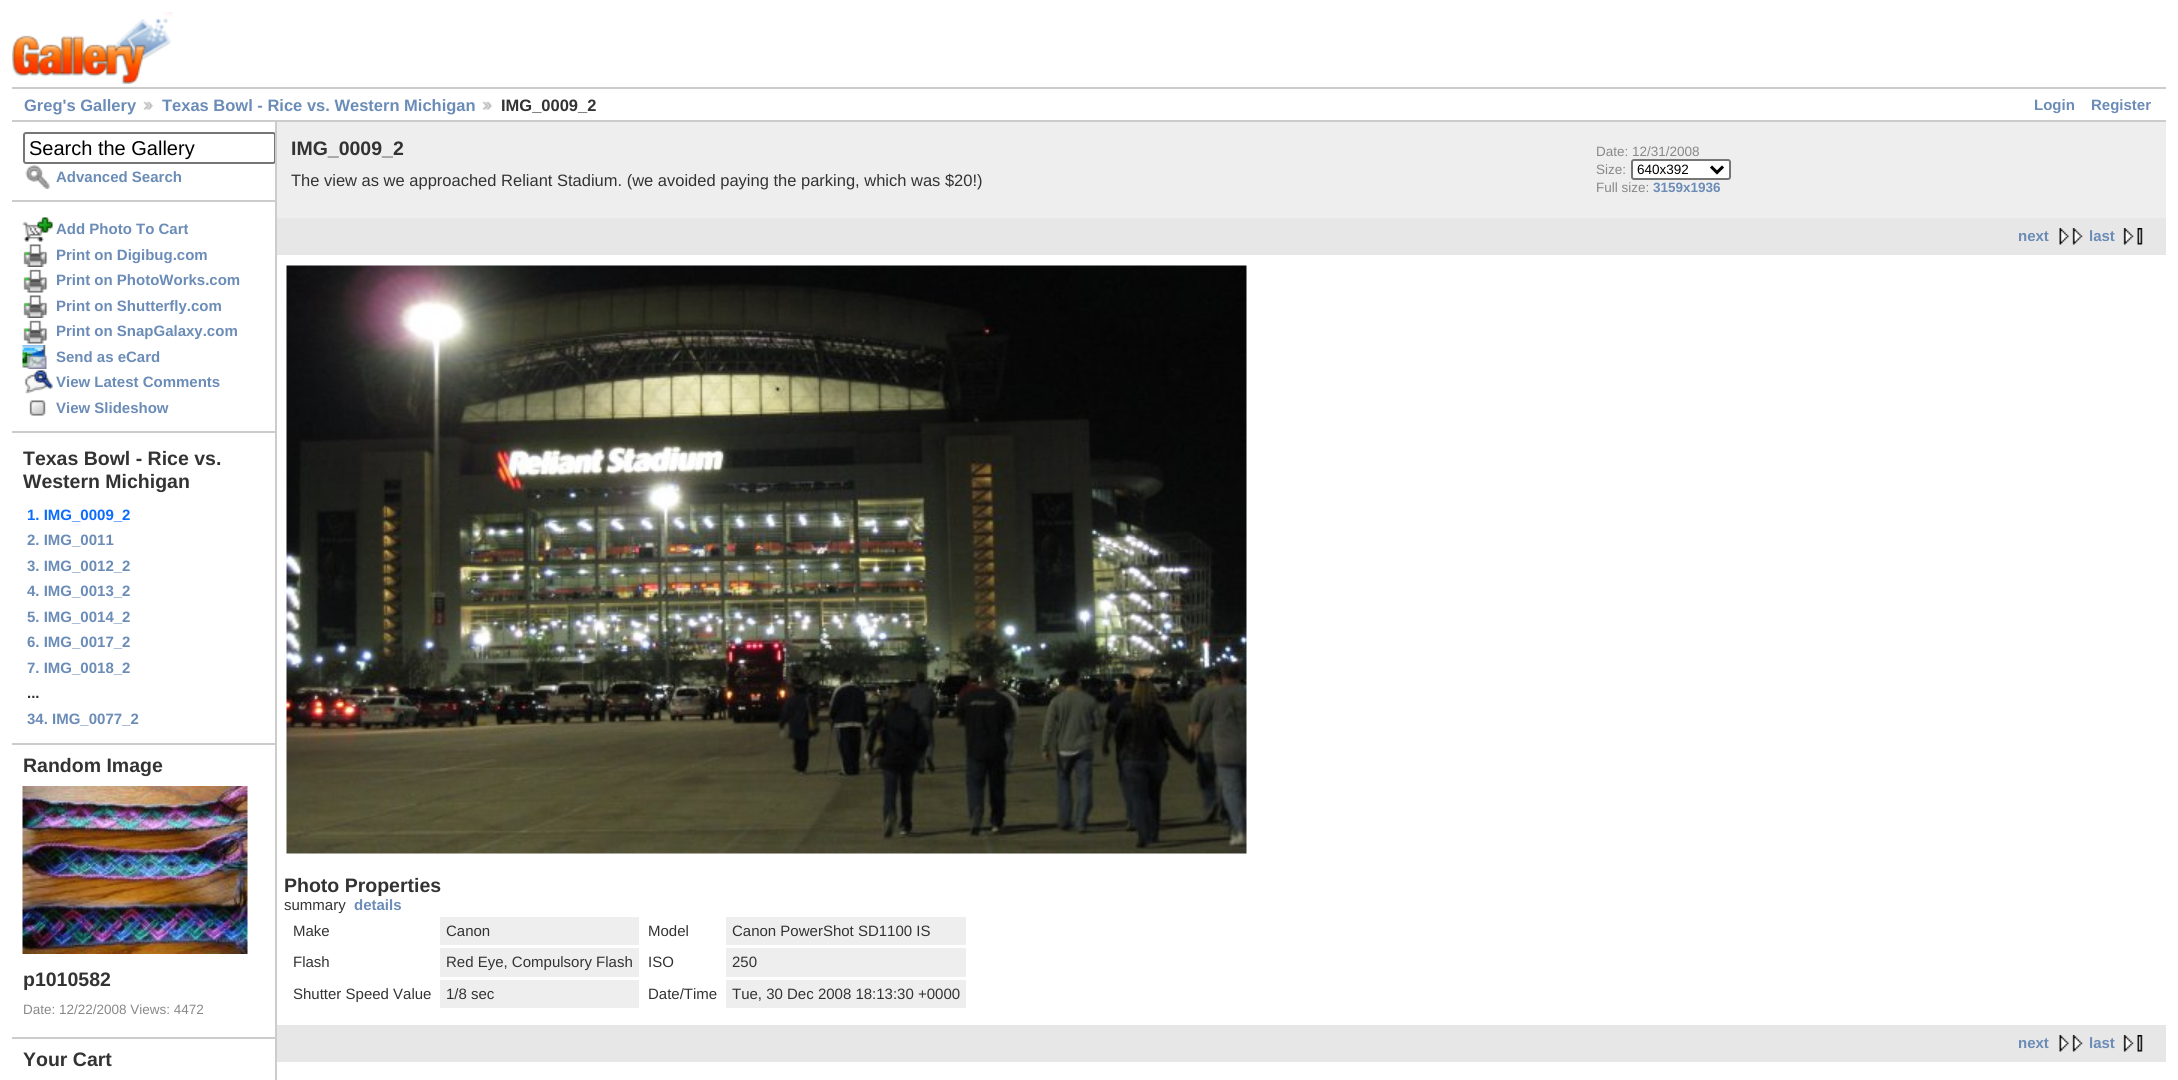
import math
import cairo

surface = cairo.ImageSurface(cairo.FORMAT_RGB24, 2178, 1080)
c = cairo.Context(surface)
options = cairo.FontOptions()
options.set_hint_metrics(cairo.HINT_METRICS_OFF)
options.set_hint_style(cairo.HINT_STYLE_NONE)
c.set_font_options(options)
c.set_miter_limit(4)
def C(code):
 c.set_source_rgb(*(v / 255 for v in bytes.fromhex(code[-6:])))
def F(family, size, italic, bold):
 c.select_font_face(family, cairo.FONT_SLANT_ITALIC if italic else cairo.FONT_SLANT_NORMAL, cairo.FONT_WEIGHT_BOLD if bold else cairo.FONT_WEIGHT_NORMAL)
 c.set_font_size(size)
def T(x, y, s):
 c.move_to(x, y)
 c.show_text(s)
def R(x, y, w, h):
 c.rectangle(x, y, w, h)
 c.fill()
def Q(x, y, w, h, r):
 c.new_sub_path()
 for i, (u, v) in enumerate([(x + w - r, y + h - r), (x + r, y + h - r), (x + r, y + r), (x + w - r, y + r)]):
  c.arc(u, v, r, i * math.pi / 2, (i + 1) * math.pi / 2)
 c.close_path()
def I(path, x, y, w, h):
 c.save()
 c.set_source_surface(cairo.ImageSurface.create_from_png(path), x, y)
 c.rectangle(x, y, w, h)
 c.fill()
 c.restore()
C('ffffff')
c.paint()
I('1.png',12,12,161,72)
C('cccccc')
R(12,87,2154,2)
R(12,120,2154,2)
F('Liberation Sans',16.5,0,1)
C('6b8cb7')
T(24,111,'Greg\'s Gallery')
I('2.png',143,101,11,9)
T(162,111,'Texas Bowl - Rice vs. Western Michigan')
I('3.png',482,101,11,9)
C('333333')
T(501,111,'IMG_0009_2')
F('Liberation Sans',15,0,1)
C('6b8cb7')
T(2034,110,'Login')
T(2091,110,'Register')
C('cccccc')
R(275,122,2,958)
R(12,200,263,2)
c.save()
c.rectangle(12,122,263,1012)
c.clip()
Q(24,133,251,30,2)
C('767676')
c.stroke()
c.restore()
F('Liberation Sans',20,0,0)
C('000000')
T(29,155,'Search the Gallery')
I('4.png',25,165,25,24)
F('Liberation Sans',15,0,1)
C('6b8cb7')
T(56,182,'Advanced Search')
C('cccccc')
R(12,431,263,2)
I('5.png',22,217,31,25)
C('6b8cb7')
T(56,234,'Add Photo To Cart')
I('6.png',23,244,25,23)
T(56,260,'Print on Digibug.com')
I('7.png',23,269,25,24)
T(56,285,'Print on PhotoWorks.com')
I('6.png',23,295,25,23)
T(56,311,'Print on Shutterfly.com')
I('7.png',23,320,25,24)
T(56,336,'Print on SnapGalaxy.com')
I('8.png',22,345,25,24)
T(56,362,'Send as eCard')
I('9.png',24,370,29,24)
T(56,387,'View Latest Comments')
I('10.png',29,400,17,16)
T(56,413,'View Slideshow')
C('cccccc')
R(12,743,263,2)
F('Liberation Sans',19.5,0,1)
C('333333')
T(23,465,'Texas Bowl - Rice vs.')
T(23,488,'Western Michigan')
F('Liberation Sans',15,0,1)
C('0b6cff')
T(27,520,'1. IMG_0009_2')
C('6b8cb7')
T(27,545,'2. IMG_0011')
T(27,571,'3. IMG_0012_2')
T(27,596,'4. IMG_0013_2')
T(27,622,'5. IMG_0014_2')
T(27,647,'6. IMG_0017_2')
T(27,673,'7. IMG_0018_2')
C('333333')
T(27,698,'...')
C('6b8cb7')
T(27,724,'34. IMG_0077_2')
C('cccccc')
R(12,1037,263,2)
F('Liberation Sans',19.5,0,1)
C('333333')
T(23,772,'Random Image')
I('11.png',22,786,226,168)
T(23,986,'p1010582')
F('Liberation Sans',13.5,0,0)
C('888888')
T(23,1014,'Date: 12/22/2008 Views: 4472')
F('Liberation Sans',19.5,0,1)
C('333333')
T(23,1066,'Your Cart')
C('eeeeee')
R(277,122,1889,96)
C('333333')
T(291,155,'IMG_0009_2')
F('Liberation Sans',16.5,0,0)
T(291,186,'The view as we approached Reliant Stadium. (we avoided paying the parking, which was $20!)')
F('Liberation Sans',13.5,0,0)
C('888888')
T(1596,156,'Date: 12/31/2008')
T(1596,174,'Size:')
C('ffffff')
Q(1632,160,98,19,2)
c.fill_preserve()
C('767676')
c.stroke()
c.new_path()
c.move_to(1711,166.5)
c.line_to(1717,172.5)
c.line_to(1723,166.5)
C('000000')
c.set_line_width(3)
c.stroke()
T(1637,174,'640x392')
C('888888')
T(1596,192,'Full size:')
F('Liberation Sans',13.5,0,1)
C('6b8cb7')
T(1653,192,'3159x1936')
C('e7e7e7')
R(277,218,1889,37)
F('Liberation Sans',15,0,1)
C('6b8cb7')
T(2018,241,'next')
I('12.png',2059,228,24,17)
T(2089,241,'last')
I('13.png',2123,228,20,17)
I('14.png',286,265,961,589)
F('Liberation Sans',19.5,0,1)
C('333333')
T(284,892,'Photo Properties')
F('Liberation Sans',15,0,0)
T(284,910,'summary')
F('Liberation Sans',15,0,1)
C('6b8cb7')
T(354,910,'details')
F('Liberation Sans',15,0,0)
C('333333')
T(293,936,'Make')
C('eeeeee')
R(440,917,199,28)
C('333333')
T(446,936,'Canon')
T(648,936,'Model')
C('eeeeee')
R(726,917,240,28)
C('333333')
T(732,936,'Canon PowerShot SD1100 IS')
T(293,967,'Flash')
C('eeeeee')
R(440,948,199,29)
C('333333')
T(446,967,'Red Eye, Compulsory Flash')
T(648,967,'ISO')
C('eeeeee')
R(726,948,240,29)
C('333333')
T(732,967,'250')
T(293,999,'Shutter Speed Value')
C('eeeeee')
R(440,980,199,28)
C('333333')
T(446,999,'1/8 sec')
T(648,999,'Date/Time')
C('eeeeee')
R(726,980,240,28)
C('333333')
T(732,999,'Tue, 30 Dec 2008 18:13:30 +0000')
C('e7e7e7')
R(277,1025,1889,37)
F('Liberation Sans',15,0,1)
C('6b8cb7')
T(2018,1048,'next')
I('12.png',2059,1035,24,17)
T(2089,1048,'last')
I('13.png',2123,1035,20,17)
surface.write_to_png('o.png')
